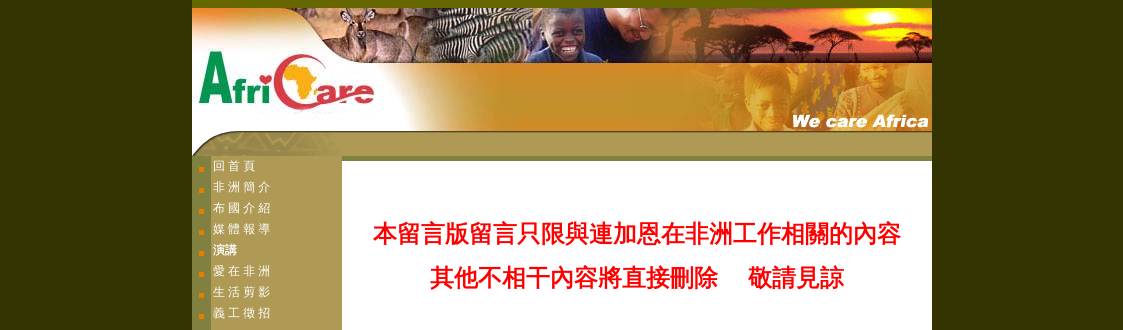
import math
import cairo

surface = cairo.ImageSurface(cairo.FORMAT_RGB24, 1123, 330)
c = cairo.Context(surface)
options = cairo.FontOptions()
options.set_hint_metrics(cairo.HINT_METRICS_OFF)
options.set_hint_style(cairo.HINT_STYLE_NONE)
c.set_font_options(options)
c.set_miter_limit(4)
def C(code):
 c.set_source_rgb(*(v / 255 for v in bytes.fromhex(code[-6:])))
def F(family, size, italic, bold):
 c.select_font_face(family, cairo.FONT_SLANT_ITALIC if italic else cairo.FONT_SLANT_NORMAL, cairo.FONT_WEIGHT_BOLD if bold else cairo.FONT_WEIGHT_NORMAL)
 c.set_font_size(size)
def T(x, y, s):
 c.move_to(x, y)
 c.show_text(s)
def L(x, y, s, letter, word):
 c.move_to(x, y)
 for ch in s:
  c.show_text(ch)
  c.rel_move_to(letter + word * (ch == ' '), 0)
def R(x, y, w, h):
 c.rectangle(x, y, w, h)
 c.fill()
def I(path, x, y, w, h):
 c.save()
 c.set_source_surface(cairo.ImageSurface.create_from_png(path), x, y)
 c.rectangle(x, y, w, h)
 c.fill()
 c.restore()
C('343402')
c.paint()
C('666701')
R(192,0,740,8)
I('1.png',192,8,150,123)
I('2.png',342,8,290,123)
I('3.png',632,8,300,123)
I('4.png',192,131,150,25)
C('ae9a55')
R(211,156,131,174)
C('808040')
R(192,156,19,174)
C('e77d00')
R(199,167,5,5)
F('WenQuanYi Zen Hei Medium',12,0,0)
C('ffffff')
L(213,170,'回 首 頁',0,-.5)
C('e77d00')
R(199,188,5,5)
C('ffffff')
L(213,191,'非 洲 簡 介',0,-.5)
C('e77d00')
R(199,209,5,5)
C('ffffff')
L(213,212,'布 國 介 紹',0,-.5)
C('e77d00')
R(199,230,5,5)
C('ffffff')
L(213,233,'媒 體 報 導',0,-.5)
C('e77d00')
R(199,251,5,5)
F('WenQuanYi Zen Hei',12,0,1)
C('ffffff')
T(213,254,'演講')
C('e77d00')
R(199,272,5,5)
F('WenQuanYi Zen Hei Medium',12,0,0)
C('ffffff')
L(213,275,'愛 在 非 洲',0,-.5)
C('e77d00')
R(199,293,5,5)
C('ffffff')
L(213,296,'生 活 剪 影',0,-.5)
C('e77d00')
R(199,314,5,5)
C('ffffff')
L(213,317,'義 工 徵 招',0,-.5)
R(342,161,590,169)
I('5.png',342,131,590,25)
C('808040')
R(342,156,590,5)
F('WenQuanYi Zen Hei',24,0,1)
C('ff0000')
T(373,242,'本留言版留言只限與連加恩在非洲工作相關的內容')
T(430,286,'其他不相干內容將直接刪除')
T(748,286,'敬請見諒')
surface.write_to_png('o.png')
